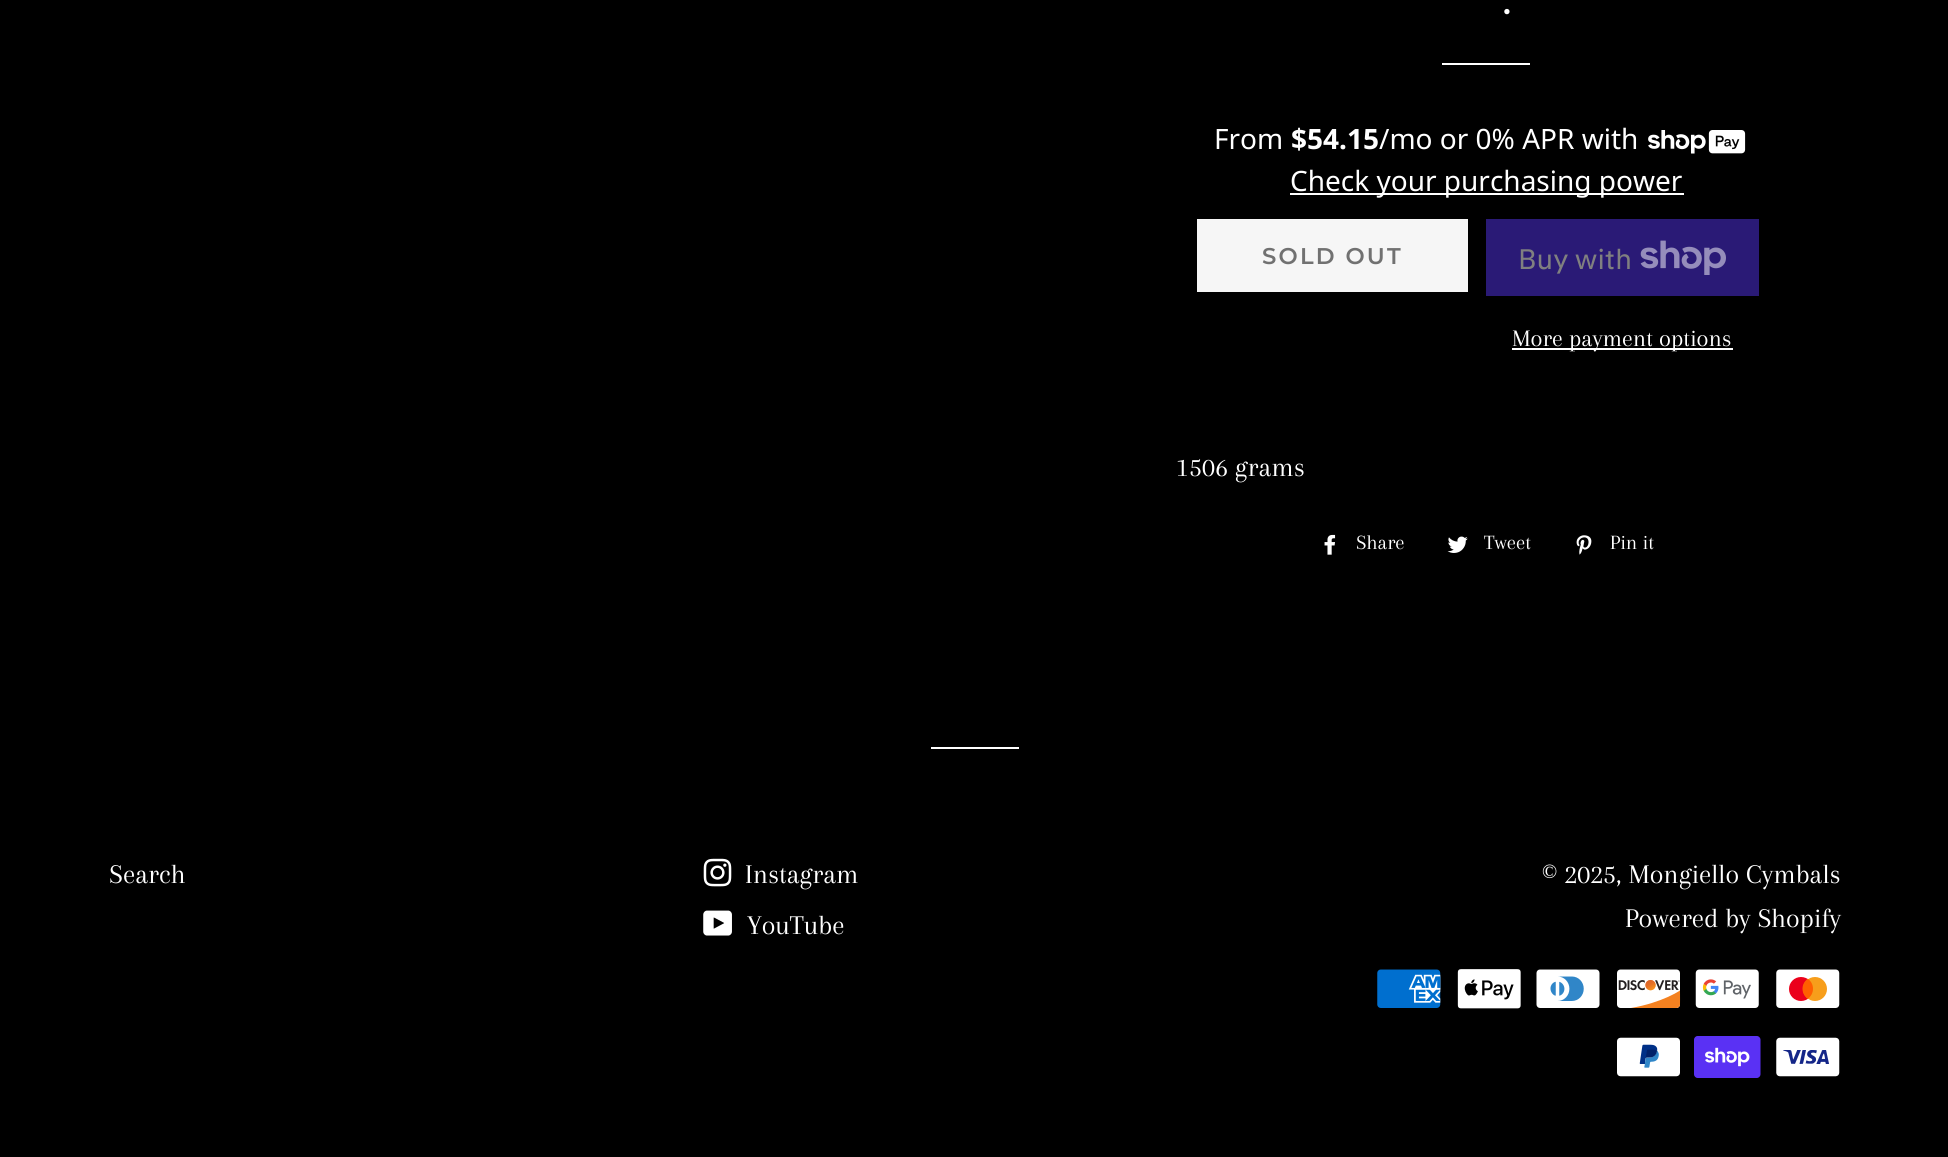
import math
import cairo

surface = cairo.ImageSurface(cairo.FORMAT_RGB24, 1948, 1157)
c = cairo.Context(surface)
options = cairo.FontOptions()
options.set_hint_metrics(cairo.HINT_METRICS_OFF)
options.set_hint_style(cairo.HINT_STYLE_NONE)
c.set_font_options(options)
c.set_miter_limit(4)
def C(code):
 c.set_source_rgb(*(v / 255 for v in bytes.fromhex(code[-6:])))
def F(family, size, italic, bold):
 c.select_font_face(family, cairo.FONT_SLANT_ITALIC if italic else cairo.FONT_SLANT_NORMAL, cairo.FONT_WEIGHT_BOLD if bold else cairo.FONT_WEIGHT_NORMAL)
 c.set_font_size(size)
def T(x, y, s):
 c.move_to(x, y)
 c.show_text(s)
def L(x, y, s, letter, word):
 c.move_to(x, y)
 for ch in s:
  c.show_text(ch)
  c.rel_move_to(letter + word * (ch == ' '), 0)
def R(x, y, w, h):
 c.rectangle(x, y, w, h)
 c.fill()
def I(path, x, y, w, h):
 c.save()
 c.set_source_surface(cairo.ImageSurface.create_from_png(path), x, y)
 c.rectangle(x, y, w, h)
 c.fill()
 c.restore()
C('000000')
c.paint()
F('Montserrat SemiBold',32,0,0)
C('ffffff')
L(1503,14,'.',3,0)
R(1442,63,88,2)
F('Noto Sans',28,0,0)
T(1214,149,'From')
F('Noto Sans',28,0,1)
T(1291,149,'$54.15')
F('Noto Sans',28,0,0)
T(1379,149,'/mo or 0% APR with')
I('1.png',1648,130,98,24)
R(1290,193,394,2)
T(1290,191,'Check your purchasing power')
C('f6f6f6')
R(1197,219,271,73)
F('Montserrat SemiBold',22.75,0,0)
C('717171')
L(1262,264,'SOLD OUT',2.25,0)
C('2a1a76')
R(1486,219,273,77)
F('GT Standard',28,0,0)
C('808080')
T(1518,269,'Buy with')
I('2.png',1640,240,86,35)
C('ffffff')
R(1512,348,221,2)
F('Arapey',24.5,0,0)
T(1512,346,'More payment options')
F('Arapey',28,0,0)
T(1176,476,'1506 grams')
I('3.png',1324,534,12,21)
F('Arapey',21,0,0)
T(1356,549,'Share')
I('4.png',1447,536,21,17)
T(1484,549,'Tweet')
I('5.png',1576,535,16,20)
T(1610,549,'Pin it')
R(931,747,88,2)
F('Arapey',28,0,0)
T(109,883,'Search')
I('6.png',703,858,29,29)
T(745,883,'Instagram')
I('7.png',703,910,29,26)
T(747,934,'YouTube')
T(1542,883,'© 2025, Mongiello Cymbals')
T(1625,927,'Powered by Shopify')
I('8.png',1377,969,64,39)
I('9.png',1457,969,64,40)
I('10.png',1536,969,64,39)
I('11.png',1617,969,64,39)
I('12.png',1695,969,64,39)
I('13.png',1776,969,64,39)
I('14.png',1617,1037,63,40)
I('15.png',1694,1036,67,42)
I('16.png',1776,1037,64,40)
surface.write_to_png('o.png')
